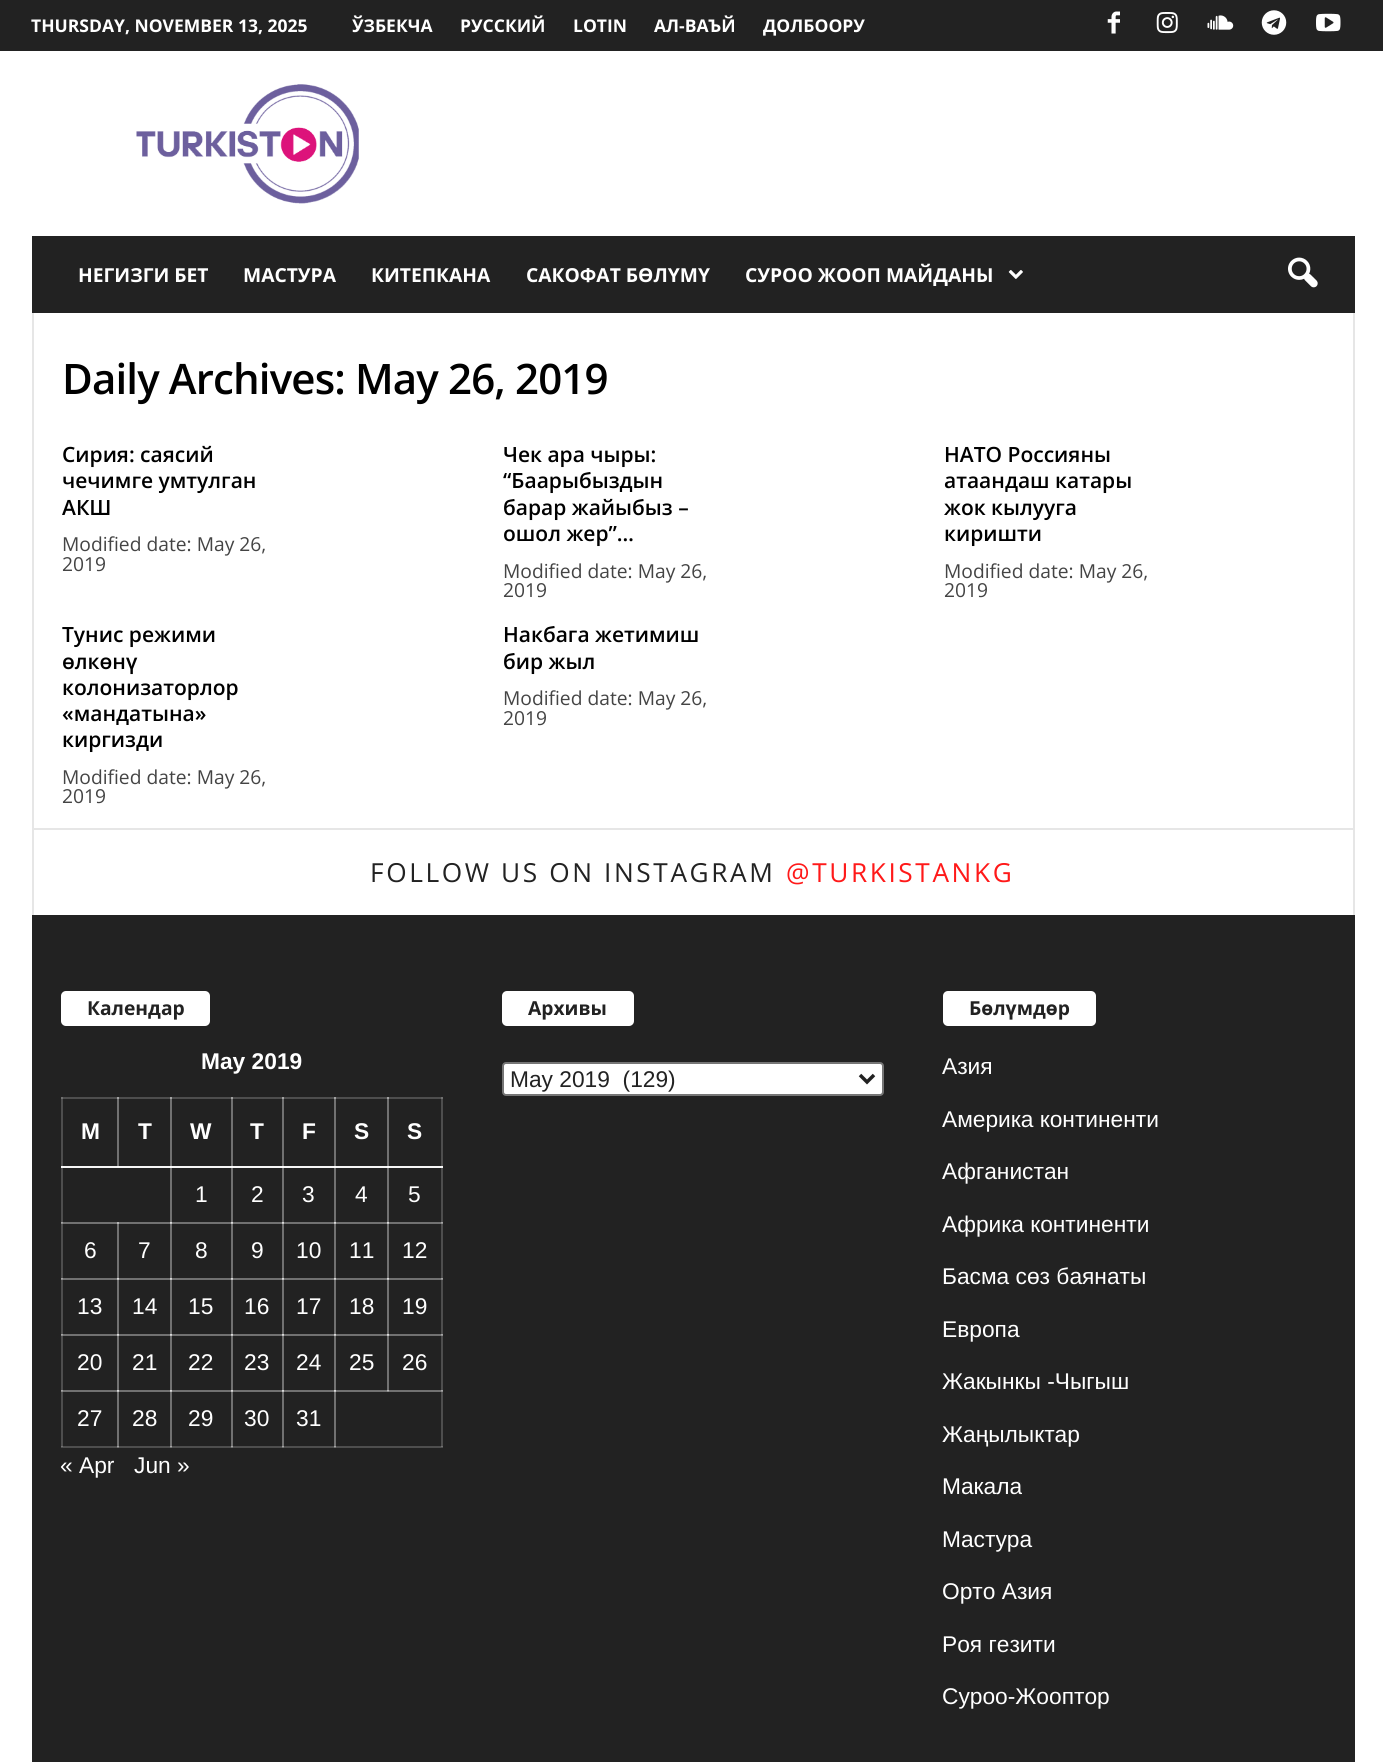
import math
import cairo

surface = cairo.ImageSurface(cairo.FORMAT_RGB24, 1383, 1762)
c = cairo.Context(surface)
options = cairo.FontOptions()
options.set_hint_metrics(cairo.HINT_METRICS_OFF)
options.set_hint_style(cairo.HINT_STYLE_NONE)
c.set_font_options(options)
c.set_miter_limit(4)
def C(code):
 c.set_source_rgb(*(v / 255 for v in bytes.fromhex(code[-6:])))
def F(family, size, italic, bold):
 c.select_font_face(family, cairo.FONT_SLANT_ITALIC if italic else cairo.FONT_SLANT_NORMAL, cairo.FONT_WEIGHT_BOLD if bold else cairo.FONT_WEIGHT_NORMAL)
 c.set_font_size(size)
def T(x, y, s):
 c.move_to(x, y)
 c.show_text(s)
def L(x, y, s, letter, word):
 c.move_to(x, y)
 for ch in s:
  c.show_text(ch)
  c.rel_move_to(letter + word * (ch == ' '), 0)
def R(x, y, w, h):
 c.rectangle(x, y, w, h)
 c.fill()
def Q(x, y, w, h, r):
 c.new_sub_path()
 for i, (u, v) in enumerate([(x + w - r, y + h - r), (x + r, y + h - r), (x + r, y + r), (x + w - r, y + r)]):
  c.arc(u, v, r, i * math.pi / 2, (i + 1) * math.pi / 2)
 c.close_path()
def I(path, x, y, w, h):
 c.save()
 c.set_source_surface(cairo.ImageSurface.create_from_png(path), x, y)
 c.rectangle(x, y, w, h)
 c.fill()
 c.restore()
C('ffffff')
c.paint()
C('222222')
R(0,0,1383,51)
F('Open Sans',17.5,0,1)
C('ffffff')
T(31,32,'THURSDAY, NOVEMBER 13, 2025')
T(352,32,'ЎЗБЕКЧА')
T(460,32,'РУССКИЙ')
T(573,32,'LOTIN')
T(654,32,'АЛ-ВАЪЙ')
T(763,32,'ДОЛБООРУ')
I('1.png',1107,11,13,23)
I('2.png',1156,12,22,22)
I('3.png',1207,15,27,15)
I('4.png',1261,10,26,25)
I('5.png',1316,13,25,19)
I('6.png',136,84,223,120)
C('222222')
R(32,236,1323,77)
F('Open Sans',19.25,0,1)
C('ffffff')
T(78,282,'НЕГИЗГИ БЕТ')
T(243,282,'МАСТУРА')
T(371,282,'КИТЕПКАНА')
T(526,282,'САКОФАТ БӨЛҮМҮ')
T(745,282,'СУРОО ЖООП МАЙДАНЫ')
I('7.png',1008,270,15,9)
I('8.png',1288,257,30,31)
C('e6e6e6')
R(32,828,1323,2)
R(32,313,2,515)
F('Open Sans SemiBold',42,0,0)
C('000000')
L(62,394,'Daily Archives: May 26, 2019',-.85,0)
F('Open Sans SemiBold',21,0,0)
T(62,462,'Сирия: саясий')
T(62,488,'чечимге умтулган')
T(62,515,'АКШ')
F('Open Sans',19.25,0,0)
C('444444')
T(62,551,'Modified date: May 26,')
T(62,571,'2019')
F('Open Sans SemiBold',21,0,0)
C('000000')
T(503,462,'Чек ара чыры:')
T(503,488,'“Баарыбыздын')
T(503,515,'барар жайыбыз –')
T(503,541,'ошол жер”…')
F('Open Sans',19.25,0,0)
C('444444')
T(503,578,'Modified date: May 26,')
T(503,597,'2019')
F('Open Sans SemiBold',21,0,0)
C('000000')
T(944,462,'НАТО Россияны')
T(944,488,'атаандаш катары')
T(944,515,'жок кылууга')
T(944,541,'киришти')
F('Open Sans',19.25,0,0)
C('444444')
T(944,578,'Modified date: May 26,')
T(944,597,'2019')
F('Open Sans SemiBold',21,0,0)
C('000000')
T(62,642,'Тунис режими')
T(62,669,'өлкөнү')
T(62,695,'колонизаторлор')
T(62,721,'«мандатына»')
T(62,747,'киргизди')
F('Open Sans',19.25,0,0)
C('444444')
T(62,784,'Modified date: May 26,')
T(62,803,'2019')
F('Open Sans SemiBold',21,0,0)
C('000000')
T(503,642,'Накбага жетимиш')
T(503,669,'бир жыл')
F('Open Sans',19.25,0,0)
C('444444')
T(503,705,'Modified date: May 26,')
T(503,725,'2019')
C('e6e6e6')
R(1353,313,2,515)
R(32,830,2,85)
F('Open Sans',26.25,0,0)
C('222222')
L(370,882,'FOLLOW US ON INSTAGRAM',2.6,0)
C('ff1919')
L(786,882,'@TURKISTANKG',2.6,0)
C('e6e6e6')
R(1353,830,2,85)
C('222222')
R(32,915,1323,847)
C('4e4e4e')
R(61,1097,2,350)
R(61,1097,58,2)
C('717171')
R(61,1097,2,2)
R(117,1097,2,70)
C('4e4e4e')
R(117,1097,55,2)
C('a4a4a4')
R(117,1097,2,2)
C('717171')
R(170,1097,2,126)
C('4e4e4e')
R(170,1097,63,2)
C('a4a4a4')
R(170,1097,2,2)
C('717171')
R(231,1097,2,126)
C('4e4e4e')
R(231,1097,53,2)
C('a4a4a4')
R(231,1097,2,2)
C('717171')
R(282,1097,2,126)
C('4e4e4e')
R(282,1097,54,2)
C('a4a4a4')
R(282,1097,2,2)
C('717171')
R(334,1097,2,126)
C('4e4e4e')
R(334,1097,55,2)
C('a4a4a4')
R(334,1097,2,2)
C('717171')
R(387,1097,2,126)
C('4e4e4e')
R(441,1097,2,294)
C('717171')
R(61,1222,58,2)
C('8d8d8d')
R(61,1223,2,1)
C('a4a4a4')
R(61,1222,2,1)
C('717171')
R(117,1222,2,57)
R(117,1222,55,2)
C('b6b6b6')
R(117,1222,2,2)
C('717171')
R(170,1222,2,57)
R(170,1222,63,2)
C('c5c5c5')
R(170,1223,2,1)
C('dadada')
R(170,1222,2,1)
C('717171')
R(231,1222,2,57)
R(231,1222,53,2)
C('c5c5c5')
R(231,1223,2,1)
C('dadada')
R(231,1222,2,1)
C('717171')
R(282,1222,2,57)
R(282,1222,54,2)
C('c5c5c5')
R(282,1223,2,1)
C('dadada')
R(282,1222,2,1)
C('717171')
R(334,1222,2,57)
R(334,1222,55,2)
C('c5c5c5')
R(334,1223,2,1)
C('dadada')
R(334,1222,2,1)
C('717171')
R(387,1222,2,57)
R(61,1278,58,2)
C('8d8d8d')
R(61,1279,2,1)
C('a4a4a4')
R(61,1278,2,1)
C('717171')
R(117,1278,2,57)
R(117,1278,55,2)
C('c5c5c5')
R(117,1279,2,1)
C('dadada')
R(117,1278,2,1)
C('717171')
R(170,1278,2,57)
R(170,1278,63,2)
C('c5c5c5')
R(170,1279,2,1)
C('dadada')
R(170,1278,2,1)
C('717171')
R(231,1278,2,57)
R(231,1278,53,2)
C('c5c5c5')
R(231,1279,2,1)
C('dadada')
R(231,1278,2,1)
C('717171')
R(282,1278,2,57)
R(282,1278,54,2)
C('c5c5c5')
R(282,1279,2,1)
C('dadada')
R(282,1278,2,1)
C('717171')
R(334,1278,2,57)
R(334,1278,55,2)
C('c5c5c5')
R(334,1279,2,1)
C('dadada')
R(334,1278,2,1)
C('717171')
R(387,1278,2,57)
R(61,1334,58,2)
C('8d8d8d')
R(61,1335,2,1)
C('a4a4a4')
R(61,1334,2,1)
C('717171')
R(117,1334,2,57)
R(117,1334,55,2)
C('c5c5c5')
R(117,1335,2,1)
C('dadada')
R(117,1334,2,1)
C('717171')
R(170,1334,2,57)
R(170,1334,63,2)
C('c5c5c5')
R(170,1335,2,1)
C('dadada')
R(170,1334,2,1)
C('717171')
R(231,1334,2,57)
R(231,1334,53,2)
C('c5c5c5')
R(231,1335,2,1)
C('dadada')
R(231,1334,2,1)
C('717171')
R(282,1334,2,57)
R(282,1334,54,2)
C('c5c5c5')
R(282,1335,2,1)
C('dadada')
R(282,1334,2,1)
C('717171')
R(334,1334,2,57)
R(334,1334,55,2)
C('c5c5c5')
R(334,1335,2,1)
C('dadada')
R(334,1334,2,1)
C('717171')
R(387,1334,2,57)
C('4e4e4e')
R(61,1446,58,2)
C('717171')
R(61,1446,2,1)
R(61,1390,58,2)
C('8d8d8d')
R(61,1391,2,1)
C('a4a4a4')
R(61,1390,2,1)
C('717171')
R(117,1390,2,57)
C('4e4e4e')
R(117,1446,55,2)
C('717171')
R(117,1447,2,1)
C('a4a4a4')
R(117,1446,2,1)
C('717171')
R(117,1390,55,2)
C('c5c5c5')
R(117,1391,2,1)
C('dadada')
R(117,1390,2,1)
C('717171')
R(170,1390,2,57)
C('4e4e4e')
R(170,1446,63,2)
C('717171')
R(170,1447,2,1)
C('a4a4a4')
R(170,1446,2,1)
C('717171')
R(170,1390,63,2)
C('c5c5c5')
R(170,1391,2,1)
C('dadada')
R(170,1390,2,1)
C('717171')
R(231,1390,2,57)
C('4e4e4e')
R(231,1446,53,2)
C('717171')
R(231,1447,2,1)
C('a4a4a4')
R(231,1446,2,1)
C('717171')
R(231,1390,53,2)
C('c5c5c5')
R(231,1391,2,1)
C('dadada')
R(231,1390,2,1)
C('717171')
R(282,1390,2,57)
C('4e4e4e')
R(282,1446,54,2)
C('717171')
R(282,1447,2,1)
C('a4a4a4')
R(282,1446,2,1)
C('717171')
R(282,1390,54,2)
C('c5c5c5')
R(282,1391,2,1)
C('dadada')
R(282,1390,2,1)
C('717171')
R(334,1390,2,57)
C('4e4e4e')
R(334,1446,109,2)
C('717171')
R(334,1447,2,1)
C('a4a4a4')
R(334,1446,2,1)
C('4e4e4e')
R(441,1390,2,57)
C('717171')
R(441,1446,2,1)
C('ffffff')
Q(61,991,149,35,5)
c.fill()
F('Open Sans',19.25,0,1)
C('222222')
T(87,1015,'Календар')
F('Liberation Sans',22.75,0,1)
C('ffffff')
T(201,1069,'May 2019')
C('f6f6f6')
R(61,1166,382,2)
C('fafafa')
R(117,1166,2,1)
C('f9f9f9')
R(61,1166,2,1)
C('fbfbfb')
R(170,1167,2,1)
C('fdfdfd')
R(170,1166,2,1)
C('fbfbfb')
R(231,1167,2,1)
C('fdfdfd')
R(231,1166,2,1)
C('fbfbfb')
R(282,1167,2,1)
C('fdfdfd')
R(282,1166,2,1)
C('fbfbfb')
R(334,1167,2,1)
C('fdfdfd')
R(334,1166,2,1)
C('ffffff')
T(81,1139,'M')
T(138,1139,'T')
T(190,1139,'W')
T(250,1139,'T')
T(302,1139,'F')
T(354,1139,'S')
C('4e4e4e')
R(387,1097,56,2)
C('a4a4a4')
R(387,1097,2,2)
C('717171')
R(441,1097,2,2)
C('ffffff')
T(407,1139,'S')
F('Liberation Sans',22.75,0,0)
T(195,1202,'1')
T(251,1202,'2')
T(302,1202,'3')
T(355,1202,'4')
C('fbfbfb')
R(387,1167,2,1)
C('fdfdfd')
R(387,1166,2,1)
C('f9f9f9')
R(441,1166,2,1)
C('ffffff')
T(408,1202,'5')
T(84,1258,'6')
T(138,1258,'7')
T(195,1258,'8')
T(251,1258,'9')
T(296,1258,'10')
T(349,1258,'11')
C('717171')
R(387,1222,56,2)
C('c5c5c5')
R(387,1223,2,1)
C('dadada')
R(387,1222,2,1)
C('8d8d8d')
R(441,1223,2,1)
C('a4a4a4')
R(441,1222,2,1)
C('ffffff')
T(402,1258,'12')
T(77,1314,'13')
T(132,1314,'14')
T(188,1314,'15')
T(244,1314,'16')
T(296,1314,'17')
T(349,1314,'18')
C('717171')
R(387,1278,56,2)
C('c5c5c5')
R(387,1279,2,1)
C('dadada')
R(387,1278,2,1)
C('8d8d8d')
R(441,1279,2,1)
C('a4a4a4')
R(441,1278,2,1)
C('ffffff')
T(402,1314,'19')
T(77,1370,'20')
T(132,1370,'21')
T(188,1370,'22')
T(244,1370,'23')
T(296,1370,'24')
T(349,1370,'25')
C('717171')
R(387,1334,56,2)
C('c5c5c5')
R(387,1335,2,1)
C('dadada')
R(387,1334,2,1)
C('8d8d8d')
R(441,1335,2,1)
C('a4a4a4')
R(441,1334,2,1)
C('ffffff')
T(402,1370,'26')
C('717171')
R(334,1390,109,2)
C('8d8d8d')
R(387,1391,2,1)
C('b6b6b6')
R(387,1390,2,1)
C('c5c5c5')
R(334,1391,2,1)
C('dadada')
R(334,1390,2,1)
C('8d8d8d')
R(441,1391,2,1)
C('a4a4a4')
R(441,1390,2,1)
C('ffffff')
T(77,1426,'27')
T(132,1426,'28')
T(188,1426,'29')
T(244,1426,'30')
T(296,1426,'31')
T(60,1473,'« Apr')
T(134,1473,'Jun »')
Q(502,991,132,35,5)
c.fill()
F('Open Sans',19.25,0,1)
C('222222')
T(528,1015,'Архивы')
C('ffffff')
Q(503,1063,380,32,3)
c.fill_preserve()
C('767676')
c.stroke()
c.new_path()
c.move_to(860,1075)
c.line_to(867,1082)
c.line_to(874,1075)
C('222222')
c.set_line_width(3.5)
c.stroke()
F('Liberation Sans',22.75,0,0)
T(510,1087,'May 2019  (129)')
C('ffffff')
Q(943,991,153,35,5)
c.fill()
F('Open Sans',19.25,0,1)
C('222222')
T(969,1015,'Бөлүмдөр')
F('Liberation Sans',22.75,0,0)
C('ffffff')
T(942,1074,'Азия')
T(942,1127,'Америка континенти')
T(942,1179,'Афганистан')
T(942,1232,'Африка континенти')
T(942,1284,'Басма сөз баянаты')
T(942,1337,'Европа')
T(942,1389,'Жакынкы -Чыгыш')
T(942,1442,'Жаңылыктар')
T(942,1494,'Макала')
T(942,1547,'Мастура')
T(942,1599,'Орто Азия')
T(942,1652,'Роя гезити')
T(942,1704,'Суроо-Жооптор')
surface.write_to_png('o.png')
